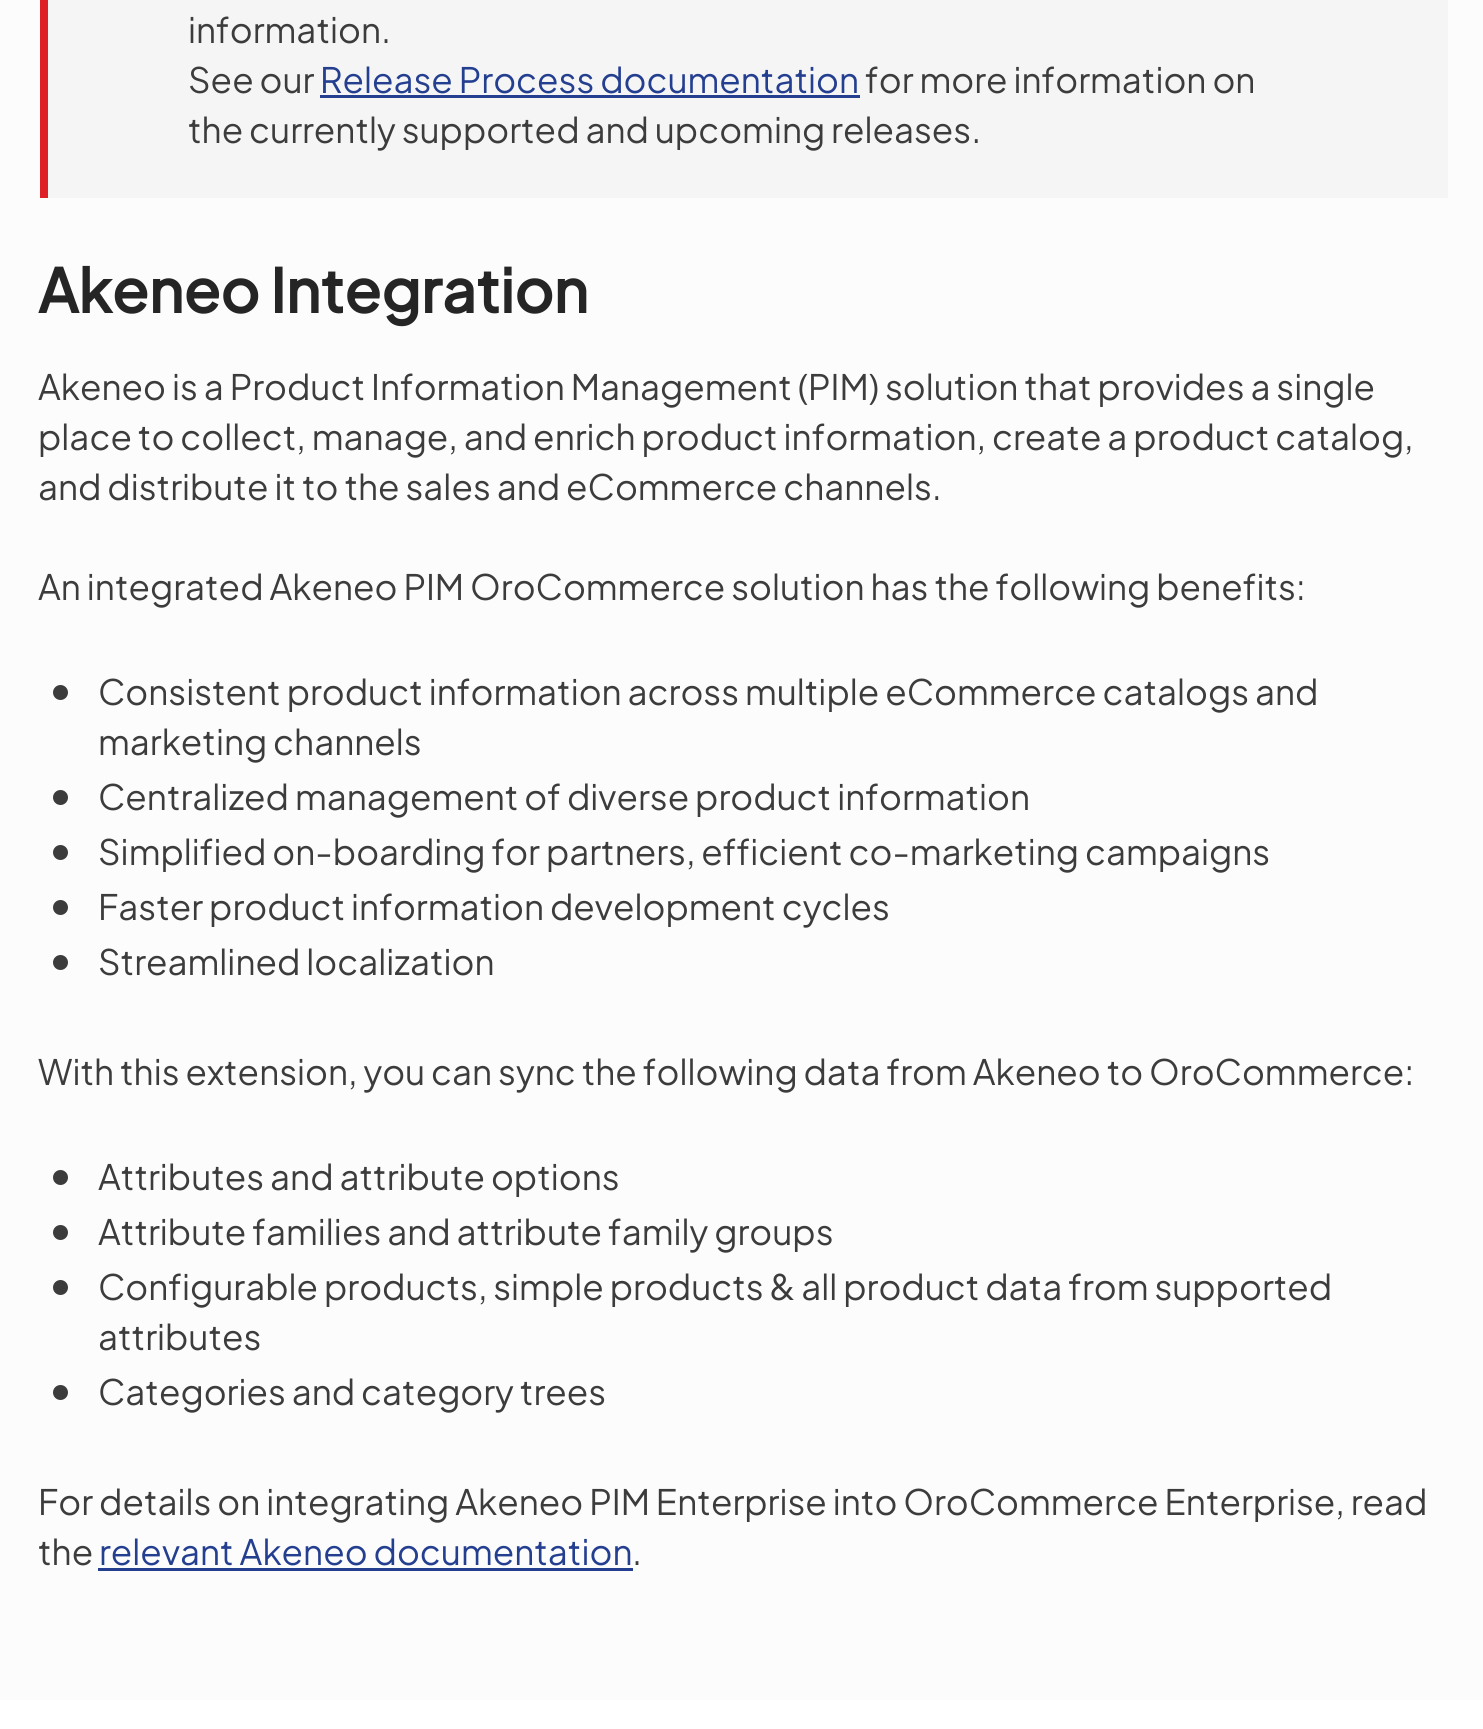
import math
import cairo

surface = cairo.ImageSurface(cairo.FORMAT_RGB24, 1483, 1729)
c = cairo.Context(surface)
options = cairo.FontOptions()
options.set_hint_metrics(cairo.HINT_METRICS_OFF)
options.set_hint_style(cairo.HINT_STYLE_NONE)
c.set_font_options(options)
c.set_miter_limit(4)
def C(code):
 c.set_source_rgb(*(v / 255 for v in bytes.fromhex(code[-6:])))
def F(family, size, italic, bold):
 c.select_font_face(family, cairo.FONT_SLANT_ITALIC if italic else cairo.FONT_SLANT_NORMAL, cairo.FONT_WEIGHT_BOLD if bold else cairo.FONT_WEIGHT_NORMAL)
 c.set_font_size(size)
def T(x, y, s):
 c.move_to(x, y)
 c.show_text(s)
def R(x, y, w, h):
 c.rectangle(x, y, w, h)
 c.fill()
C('fcfcfc')
c.paint()
C('f5f5f5')
R(48,0,1400,198)
C('de1f26')
R(40,0,8,198)
F('Plus Jakarta Sans',35,0,0)
C('3c3c3c')
T(188,43,'information.')
T(188,93,'See our')
C('243f90')
T(320,93,'Release Process documentation')
R(320,95,540,3)
C('3c3c3c')
T(865,93,'for more information on')
T(188,143,'the currently supported and upcoming releases.')
F('Plus Jakarta Sans',60,0,1)
C('252525')
T(38,313,'Akeneo Integration')
F('Plus Jakarta Sans',35,0,0)
C('3c3c3c')
T(38,400,'Akeneo is a Product Information Management (PIM) solution that provides a single')
T(38,450,'place to collect, manage, and enrich product information, create a product catalog,')
T(38,500,'and distribute it to the sales and eCommerce channels.')
T(38,600,'An integrated Akeneo PIM OroCommerce solution has the following benefits:')
c.new_path()
c.arc(60.5,692.5,7.5,0,2 * math.pi)
c.fill()
T(98,705,'Consistent product information across multiple eCommerce catalogs and')
T(98,755,'marketing channels')
c.new_path()
c.arc(60.5,797.5,7.5,0,2 * math.pi)
c.fill()
T(98,810,'Centralized management of diverse product information')
c.new_path()
c.arc(60.5,852.5,7.5,0,2 * math.pi)
c.fill()
T(98,865,'Simplified on-boarding for partners, efficient co-marketing campaigns')
c.new_path()
c.arc(60.5,907.5,7.5,0,2 * math.pi)
c.fill()
T(98,920,'Faster product information development cycles')
c.new_path()
c.arc(60.5,962.5,7.5,0,2 * math.pi)
c.fill()
T(98,975,'Streamlined localization')
T(38,1085,'With this extension, you can sync the following data from Akeneo to OroCommerce:')
c.new_path()
c.arc(60.5,1177.5,7.5,0,2 * math.pi)
c.fill()
T(98,1190,'Attributes and attribute options')
c.new_path()
c.arc(60.5,1232.5,7.5,0,2 * math.pi)
c.fill()
T(98,1245,'Attribute families and attribute family groups')
c.new_path()
c.arc(60.5,1287.5,7.5,0,2 * math.pi)
c.fill()
T(98,1300,'Configurable products, simple products & all product data from supported')
T(98,1350,'attributes')
c.new_path()
c.arc(60.5,1392.5,7.5,0,2 * math.pi)
c.fill()
T(98,1405,'Categories and category trees')
T(38,1515,'For details on integrating Akeneo PIM Enterprise into OroCommerce Enterprise, read')
T(38,1565,'the')
C('243f90')
T(99,1565,'relevant Akeneo documentation')
R(98,1568,535,3)
C('3c3c3c')
T(632,1565,'.')
C('ffffff')
R(0,1700,1483,29)
surface.write_to_png('o.png')
